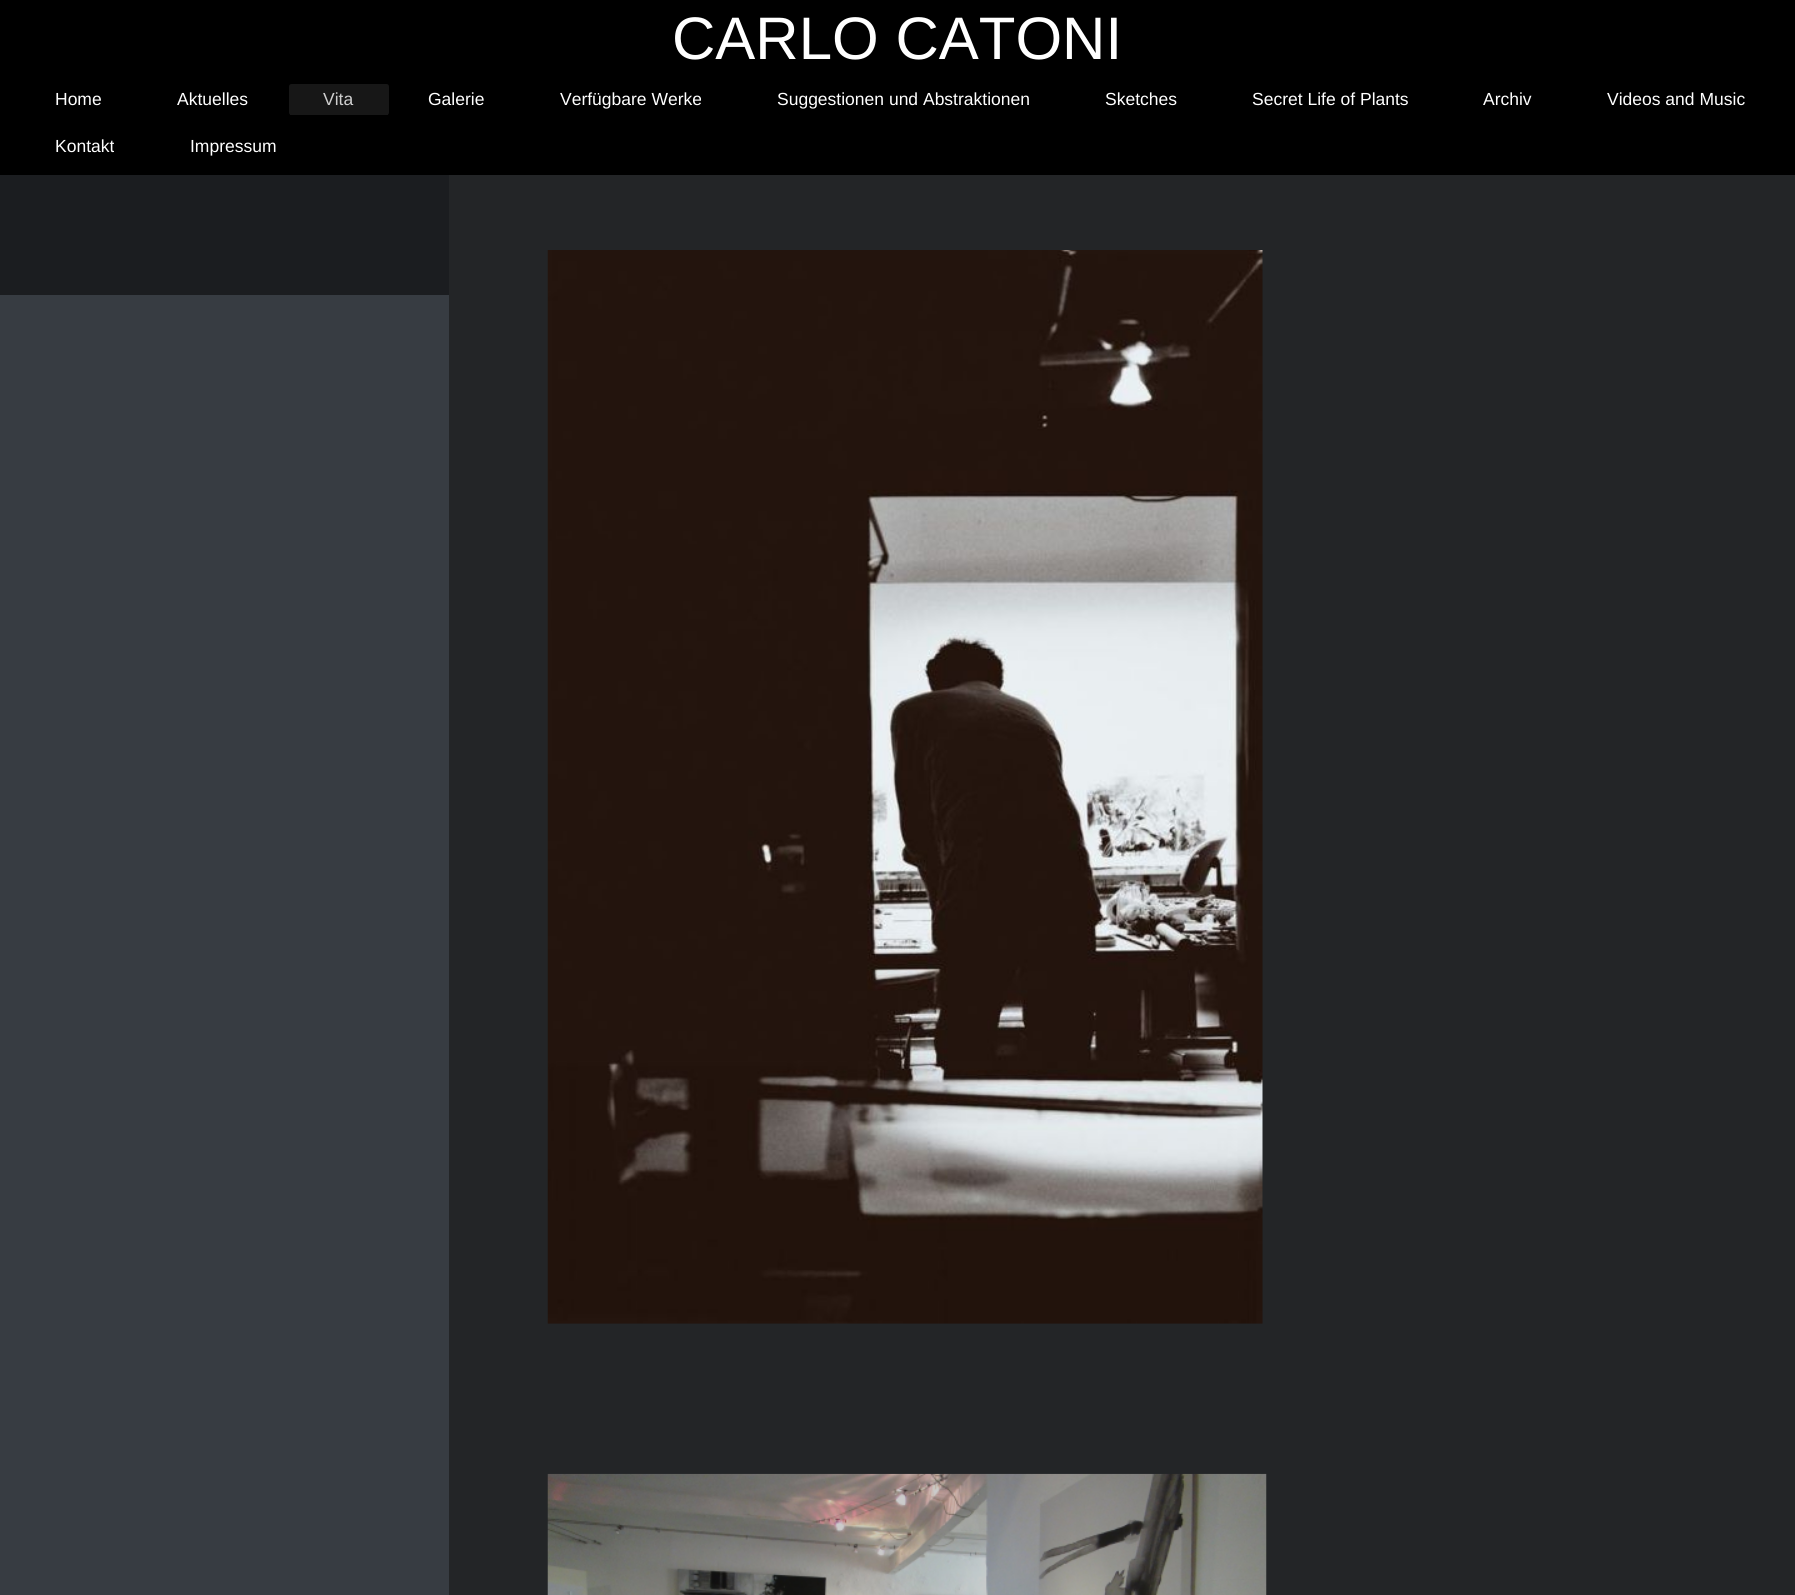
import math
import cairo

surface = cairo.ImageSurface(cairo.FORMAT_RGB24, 1795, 1595)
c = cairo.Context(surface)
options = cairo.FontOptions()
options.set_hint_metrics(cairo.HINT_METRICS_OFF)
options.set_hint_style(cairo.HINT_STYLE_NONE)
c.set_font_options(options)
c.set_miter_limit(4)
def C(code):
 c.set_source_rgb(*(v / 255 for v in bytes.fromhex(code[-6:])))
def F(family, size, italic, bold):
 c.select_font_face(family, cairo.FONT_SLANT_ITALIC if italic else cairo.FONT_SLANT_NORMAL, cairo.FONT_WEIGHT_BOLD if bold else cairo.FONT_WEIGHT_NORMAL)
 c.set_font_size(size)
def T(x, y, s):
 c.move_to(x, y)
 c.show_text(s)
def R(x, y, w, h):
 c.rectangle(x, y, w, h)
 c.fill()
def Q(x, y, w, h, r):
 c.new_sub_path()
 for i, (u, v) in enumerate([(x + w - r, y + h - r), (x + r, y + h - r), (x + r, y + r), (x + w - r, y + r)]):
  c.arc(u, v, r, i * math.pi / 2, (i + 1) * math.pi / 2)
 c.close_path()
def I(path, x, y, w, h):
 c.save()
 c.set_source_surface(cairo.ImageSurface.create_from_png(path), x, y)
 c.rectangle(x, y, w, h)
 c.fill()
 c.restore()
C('373c42')
c.paint()
C('000000')
R(0,0,1795,175)
F('Liberation Sans',60,0,0)
C('ffffff')
T(672,59,'CARLO CATONI')
F('Liberation Sans',17.5,0,0)
T(55,105,'Home')
T(177,105,'Aktuelles')
C('171717')
Q(289,84,100,31,2.5)
c.fill()
R(290,114,98,1)
C('cfcfcf')
T(323,105,'Vita')
C('ffffff')
T(428,105,'Galerie')
T(560,105,'Verfügbare Werke')
T(777,105,'Suggestionen und Abstraktionen')
T(1105,105,'Sketches')
T(1252,105,'Secret Life of Plants')
T(1483,105,'Archiv')
T(1607,105,'Videos and Music')
T(55,152,'Kontakt')
T(190,152,'Impressum')
C('1b1d20')
R(0,175,449,120)
C('232527')
R(449,175,1346,1420)
I('1.png',547,250,716,1074)
I('2.png',547,1473,720,122)
surface.write_to_png('o.png')
